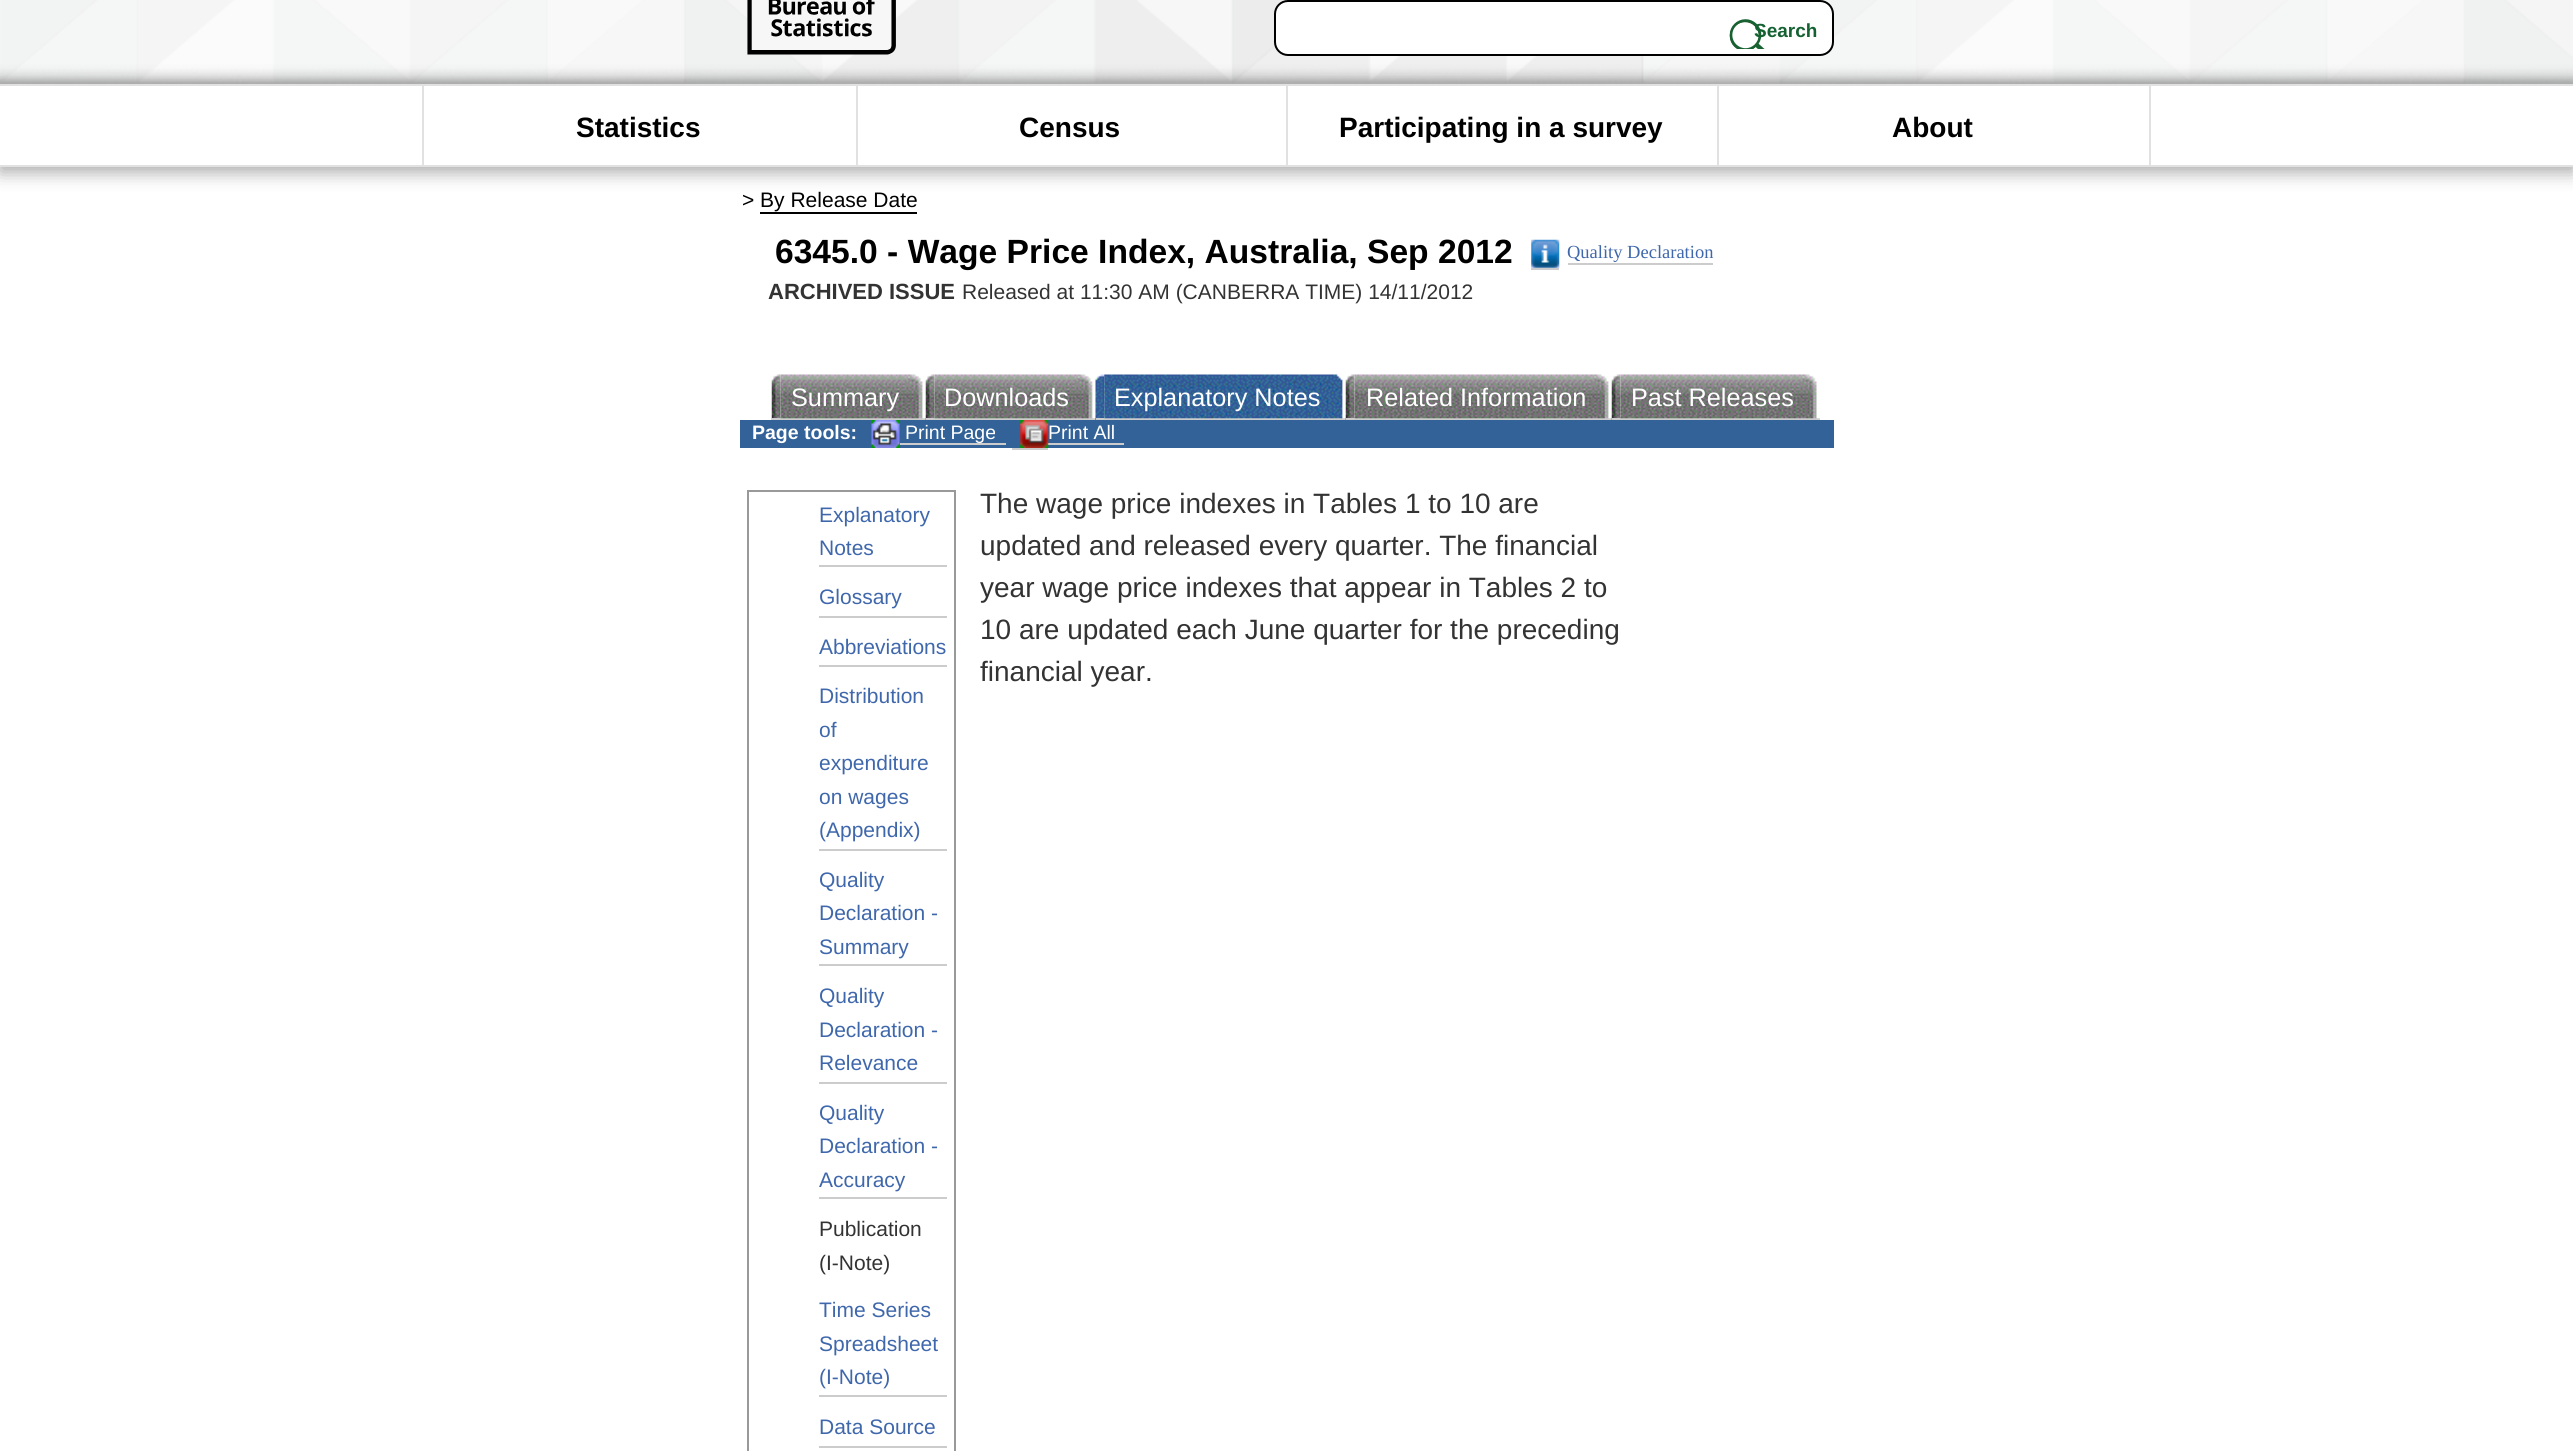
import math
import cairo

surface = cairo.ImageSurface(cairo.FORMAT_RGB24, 2573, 1451)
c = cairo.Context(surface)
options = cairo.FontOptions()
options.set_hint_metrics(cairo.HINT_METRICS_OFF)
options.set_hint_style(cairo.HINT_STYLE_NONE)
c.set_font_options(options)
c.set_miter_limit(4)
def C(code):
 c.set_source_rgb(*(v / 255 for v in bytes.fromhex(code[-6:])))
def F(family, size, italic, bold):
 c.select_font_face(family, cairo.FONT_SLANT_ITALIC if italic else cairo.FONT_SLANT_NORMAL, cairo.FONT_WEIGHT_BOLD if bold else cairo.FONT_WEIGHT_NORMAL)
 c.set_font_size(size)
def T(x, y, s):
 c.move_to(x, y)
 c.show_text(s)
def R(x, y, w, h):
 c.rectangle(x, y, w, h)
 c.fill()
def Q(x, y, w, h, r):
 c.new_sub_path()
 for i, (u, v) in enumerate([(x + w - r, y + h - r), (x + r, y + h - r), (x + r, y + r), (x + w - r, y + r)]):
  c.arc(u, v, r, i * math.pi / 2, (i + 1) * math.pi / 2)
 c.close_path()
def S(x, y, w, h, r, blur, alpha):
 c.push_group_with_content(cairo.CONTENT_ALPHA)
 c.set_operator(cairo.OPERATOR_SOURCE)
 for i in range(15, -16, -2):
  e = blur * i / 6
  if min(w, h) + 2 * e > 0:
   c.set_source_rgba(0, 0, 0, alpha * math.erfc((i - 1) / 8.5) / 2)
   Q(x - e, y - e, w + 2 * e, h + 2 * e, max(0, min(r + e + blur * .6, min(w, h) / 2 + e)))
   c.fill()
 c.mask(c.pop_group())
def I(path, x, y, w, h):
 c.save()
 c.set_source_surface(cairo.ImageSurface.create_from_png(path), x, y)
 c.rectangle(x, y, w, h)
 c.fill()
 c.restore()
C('ffffff')
c.paint()
I('1.png',0,0,2573,84)
I('2.png',747,0,149,55)
C('ffffff')
Q(1275,1,558,54,13)
c.fill_preserve()
C('000000')
c.stroke()
I('3.png',1729,19,36,30)
F('Liberation Sans',19,0,1)
C('146132')
T(1754,37,'Search')
c.save()
c.set_fill_rule(cairo.FILL_RULE_EVEN_ODD)
c.new_path()
c.move_to(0,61)
c.line_to(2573,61)
c.line_to(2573,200)
c.line_to(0,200)
c.close_path()
c.move_to(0,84)
c.line_to(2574,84)
c.line_to(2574,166)
c.line_to(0,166)
c.close_path()
c.clip()
C('000000')
S(0,89,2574,83,0,9,.35)
c.restore()
C('e1e1e1')
R(0,84,2573,2)
R(0,165,2573,2)
R(856,86,2,79)
R(422,86,2,79)
F('Liberation Sans',28,0,1)
C('000000')
T(576,137,'Statistics')
C('e1e1e1')
R(1286,86,2,79)
C('000000')
T(1019,137,'Census')
C('e1e1e1')
R(1717,86,2,79)
C('000000')
T(1339,137,'Participating in a survey')
C('e1e1e1')
R(2149,86,2,79)
C('000000')
T(1892,137,'About')
F('Liberation Sans',21,0,0)
T(742,207,'> By Release Date')
R(760,212,157,2)
F('Liberation Sans',33.6,0,1)
T(775,263,'6345.0 - Wage Price Index, Australia, Sep 2012')
I('4.png',1531,239,29,29)
F('Liberation Serif',18.5,0,0)
C('3f67ab')
T(1567,258,'Quality Declaration')
C('cccccc')
R(1531,268,28,2)
R(1568,263,145,2)
F('Liberation Sans',22,0,1)
C('333333')
T(768,299,'ARCHIVED ISSUE')
F('Liberation Sans',21,0,0)
T(962,299,'Released at 11:30 AM (CANBERRA TIME) 14/11/2012')
I('5.png',771,374,10,46)
C('cccccc')
R(772,418,154,2)
I('6.png',780,374,146,45)
F('Liberation Sans',25.25,0,0)
C('ffffff')
T(791,406,'Summary')
I('7.png',925,374,10,46)
C('cccccc')
R(926,418,170,2)
I('8.png',934,374,162,45)
C('ffffff')
T(944,406,'Downloads')
I('9.png',1095,374,10,46)
C('cccccc')
R(1096,418,250,2)
I('10.png',1104,374,242,45)
C('ffffff')
T(1114,406,'Explanatory Notes')
I('11.png',1345,374,10,46)
C('cccccc')
R(1346,418,266,2)
I('12.png',1354,374,258,45)
C('ffffff')
T(1366,406,'Related Information')
I('13.png',1611,374,10,46)
C('cccccc')
R(1612,418,208,2)
I('14.png',1620,374,200,45)
C('ffffff')
T(1631,406,'Past Releases')
C('326297')
R(740,420,1094,28)
F('Liberation Sans',19.5,0,1)
C('ffffff')
T(752,439,'Page tools:')
I('15.png',871,420,29,28)
C('cccccc')
R(900,443,106,2)
F('Liberation Sans',19.5,0,0)
C('ffffff')
T(905,439,'Print Page')
C('cccccc')
R(1048,443,76,2)
I('16.png',1020,420,29,28)
C('ffffff')
T(1048,439,'Print All')
C('cccccc')
R(1012,448,36,2)
c.rectangle(748,491,207,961)
C('999999')
c.stroke()
C('cccccc')
R(819,565,128,2)
F('Liberation Sans',21,0,0)
C('3f67ab')
T(819,522,'Explanatory')
T(819,555,'Notes')
C('cccccc')
R(819,616,128,2)
C('3f67ab')
T(819,604,'Glossary')
C('cccccc')
R(819,665,128,2)
C('3f67ab')
T(819,654,'Abbreviations')
C('cccccc')
R(819,849,128,2)
C('3f67ab')
T(819,703,'Distribution')
T(819,737,'of')
T(819,770,'expenditure')
T(819,804,'on wages')
T(819,837,'(Appendix)')
C('cccccc')
R(819,964,128,2)
C('3f67ab')
T(819,887,'Quality')
T(819,920,'Declaration -')
T(819,954,'Summary')
C('cccccc')
R(819,1082,128,2)
C('3f67ab')
T(819,1003,'Quality')
T(819,1037,'Declaration -')
T(819,1070,'Relevance')
C('cccccc')
R(819,1197,128,2)
C('3f67ab')
T(819,1120,'Quality')
T(819,1153,'Declaration -')
T(819,1187,'Accuracy')
C('333333')
T(819,1236,'Publication')
T(819,1270,'(I-Note)')
C('cccccc')
R(819,1395,128,2)
C('3f67ab')
T(819,1317,'Time Series')
T(819,1351,'Spreadsheet')
T(819,1384,'(I-Note)')
C('cccccc')
R(819,1446,128,2)
C('3f67ab')
T(819,1434,'Data Source')
F('Liberation Sans',28,0,0)
C('333333')
T(980,513,'The wage price indexes in Tables 1 to 10 are')
T(980,555,'updated and released every quarter. The financial')
T(980,597,'year wage price indexes that appear in Tables 2 to')
T(980,639,'10 are updated each June quarter for the preceding')
T(980,681,'financial year.')
surface.write_to_png('o.png')
